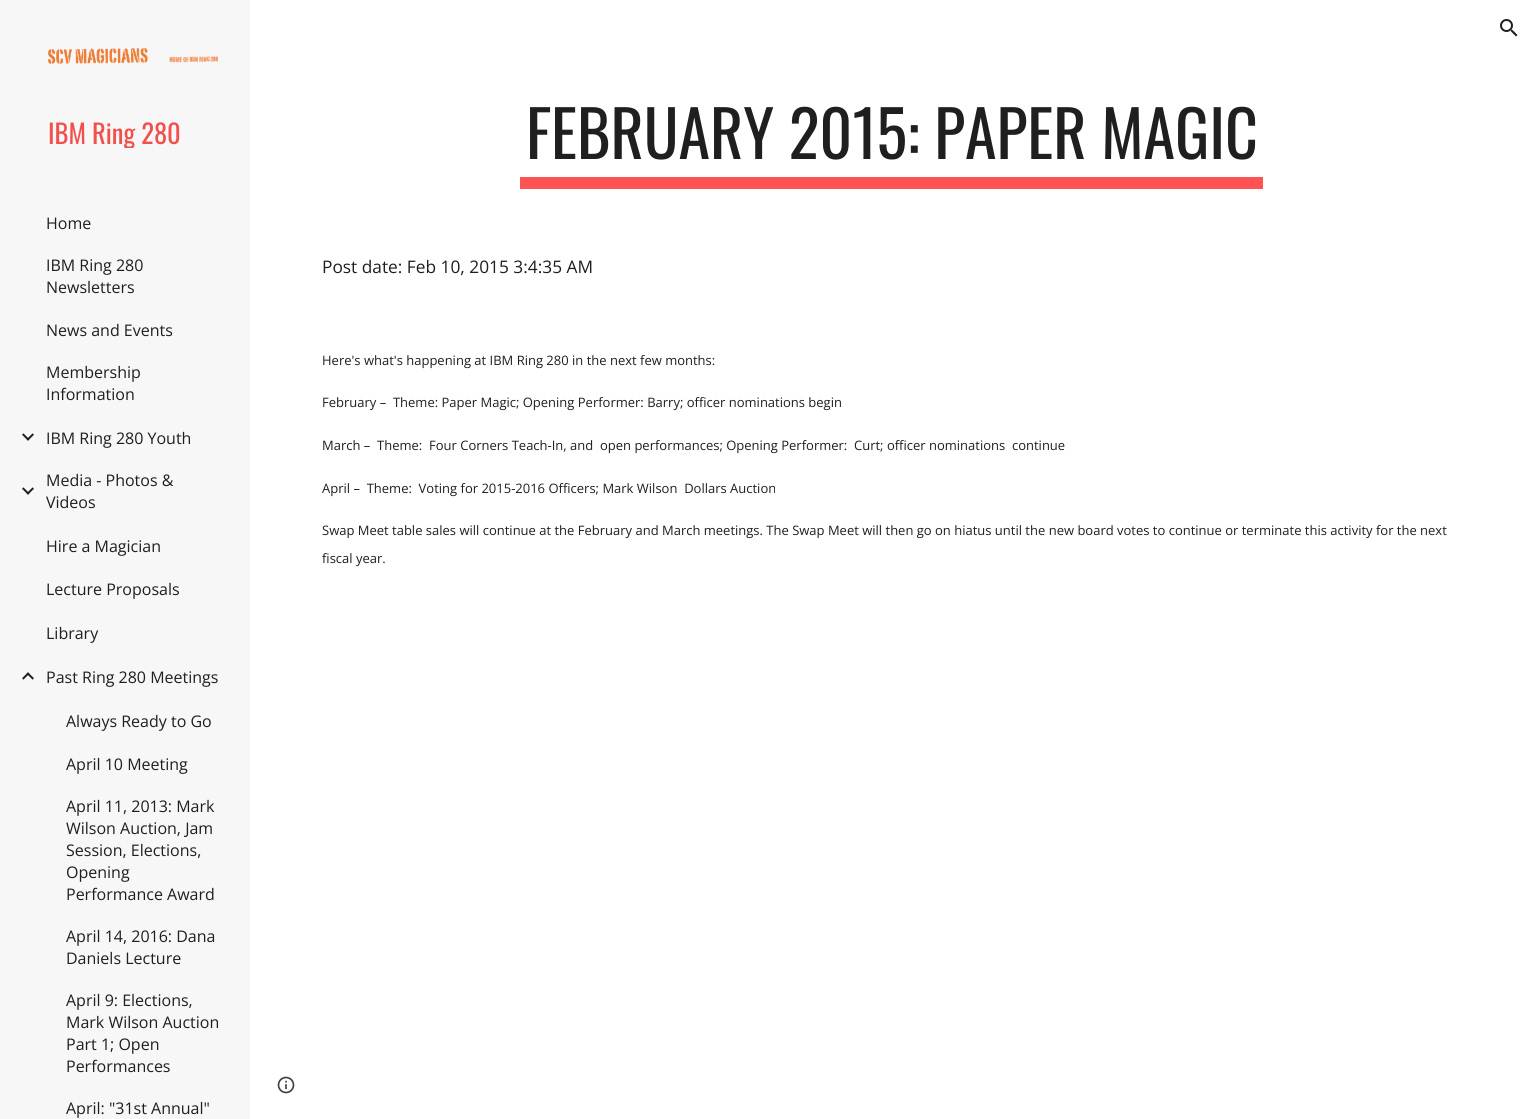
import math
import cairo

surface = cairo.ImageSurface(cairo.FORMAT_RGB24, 1533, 1119)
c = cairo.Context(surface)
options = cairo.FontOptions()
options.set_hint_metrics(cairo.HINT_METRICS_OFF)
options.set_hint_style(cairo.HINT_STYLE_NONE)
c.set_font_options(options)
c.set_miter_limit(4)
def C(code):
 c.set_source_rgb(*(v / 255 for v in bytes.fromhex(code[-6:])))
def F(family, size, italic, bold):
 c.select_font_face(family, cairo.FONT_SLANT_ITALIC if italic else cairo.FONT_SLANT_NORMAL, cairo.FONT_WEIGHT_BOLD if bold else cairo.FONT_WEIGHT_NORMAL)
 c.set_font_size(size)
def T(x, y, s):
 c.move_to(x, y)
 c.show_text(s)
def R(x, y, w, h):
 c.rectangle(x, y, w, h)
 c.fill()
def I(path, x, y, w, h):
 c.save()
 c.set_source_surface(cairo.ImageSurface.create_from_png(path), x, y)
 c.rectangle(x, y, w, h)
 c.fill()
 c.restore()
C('ffffff')
c.paint()
I('1.png',1500,19,18,18)
C('f7f7f7')
R(0,0,250,1119)
I('2.png',48,48,170,16)
c.save()
c.rectangle(48,116,170,32)
c.clip()
F('Oswald',26.5,0,0)
C('f34f4c')
T(48,144,'IBM Ring 280')
c.restore()
F('Open Sans',16,0,0)
C('1f1f1f')
T(46,229,'Home')
T(46,271,'IBM Ring 280')
T(46,293,'Newsletters')
T(46,336,'News and Events')
T(46,378,'Membership')
T(46,400,'Information')
I('3.png',22,433,12,8)
T(46,444,'IBM Ring 280 Youth')
I('3.png',22,487,12,8)
T(46,486,'Media - Photos &')
T(46,508,'Videos')
T(46,552,'Hire a Magician')
T(46,595,'Lecture Proposals')
T(46,639,'Library')
I('4.png',22,672,12,8)
T(46,683,'Past Ring 280 Meetings')
T(66,727,'Always Ready to Go')
T(66,770,'April 10 Meeting')
T(66,812,'April 11, 2013: Mark')
T(66,834,'Wilson Auction, Jam')
T(66,856,'Session, Elections,')
T(66,878,'Opening')
T(66,900,'Performance Award')
T(66,942,'April 14, 2016: Dana')
T(66,964,'Daniels Lecture')
T(66,1006,'April 9: Elections,')
T(66,1028,'Mark Wilson Auction')
T(66,1050,'Part 1; Open')
T(66,1072,'Performances')
T(66,1114,'April: "31st Annual"')
I('5.png',277,1076,18,18)
F('Oswald',64,0,0)
T(526,159,'FEBRUARY 2015: PAPER MAGIC')
C('ff5252')
R(520,177,743,12)
F('Open Sans',17.3,0,0)
C('1f1f1f')
T(322,273,'Post date: Feb 10, 2015 3:4:35 AM')
F('Open Sans',13,0,0)
T(322,365,'Here\'s what\'s happening at IBM Ring 280 in the next few months:')
T(322,407,'February –  Theme: Paper Magic; Opening Performer: Barry; officer nominations begin')
T(322,450,'March –  Theme:  Four Corners Teach-In, and  open performances; Opening Performer:  Curt; officer nominations  continue')
T(322,493,'April –  Theme:  Voting for 2015-2016 Officers; Mark Wilson  Dollars Auction')
T(322,535,'Swap Meet table sales will continue at the February and March meetings. The Swap Meet will then go on hiatus until the new board votes to continue or terminate this activity for the next')
T(322,563,'fiscal year.')
surface.write_to_png('o.png')
